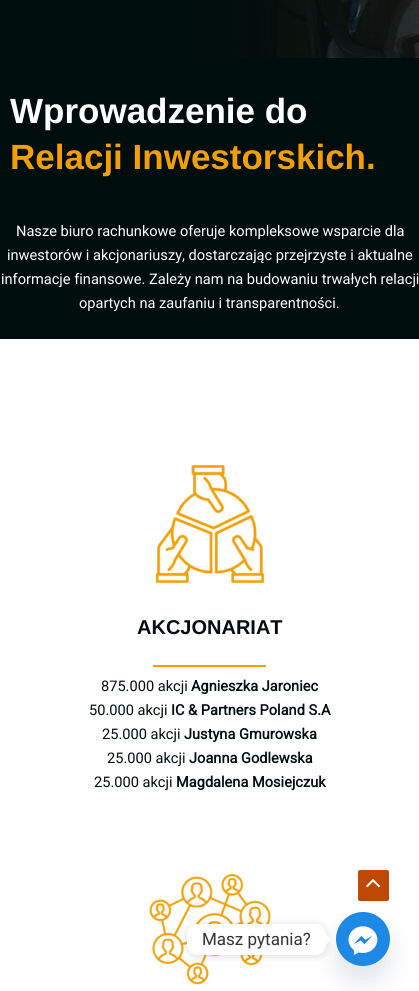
import math
import cairo

surface = cairo.ImageSurface(cairo.FORMAT_RGB24, 419, 991)
c = cairo.Context(surface)
options = cairo.FontOptions()
options.set_hint_metrics(cairo.HINT_METRICS_OFF)
options.set_hint_style(cairo.HINT_STYLE_NONE)
c.set_font_options(options)
c.set_miter_limit(4)
def C(code):
 c.set_source_rgb(*(v / 255 for v in bytes.fromhex(code[-6:])))
def F(family, size, italic, bold):
 c.select_font_face(family, cairo.FONT_SLANT_ITALIC if italic else cairo.FONT_SLANT_NORMAL, cairo.FONT_WEIGHT_BOLD if bold else cairo.FONT_WEIGHT_NORMAL)
 c.set_font_size(size)
def T(x, y, s):
 c.move_to(x, y)
 c.show_text(s)
def R(x, y, w, h):
 c.rectangle(x, y, w, h)
 c.fill()
def Q(x, y, w, h, r):
 c.new_sub_path()
 for i, (u, v) in enumerate([(x + w - r, y + h - r), (x + r, y + h - r), (x + r, y + r), (x + w - r, y + r)]):
  c.arc(u, v, r, i * math.pi / 2, (i + 1) * math.pi / 2)
 c.close_path()
def S(x, y, w, h, r, blur, alpha):
 c.push_group_with_content(cairo.CONTENT_ALPHA)
 c.set_operator(cairo.OPERATOR_SOURCE)
 for i in range(15, -16, -2):
  e = blur * i / 6
  if min(w, h) + 2 * e > 0:
   c.set_source_rgba(0, 0, 0, alpha * math.erfc((i - 1) / 8.5) / 2)
   Q(x - e, y - e, w + 2 * e, h + 2 * e, max(0, min(r + e + blur * .6, min(w, h) / 2 + e)))
   c.fill()
 c.mask(c.pop_group())
def I(path, x, y, w, h):
 c.save()
 c.set_source_surface(cairo.ImageSurface.create_from_png(path), x, y)
 c.rectangle(x, y, w, h)
 c.fill()
 c.restore()
C('ffffff')
c.paint()
I('1.png',0,0,419,58)
C('000d0d')
R(0,58,419,281)
F('Liberation Sans',35,0,1)
C('ffffff')
T(10,123,'Wprowadzenie do')
C('f29f05')
T(10,169,'Relacji Inwestorskich.')
F('Roboto',14.6,0,0)
C('ffffff')
T(16,236,'Nasze biuro rachunkowe oferuje kompleksowe wsparcie dla')
T(7,260,'inwestorów i akcjonariuszy, dostarczając przejrzyste i aktualne')
T(1,284,'informacje finansowe. Zależy nam na budowaniu trwałych relacji')
T(79,308,'opartych na zaufaniu i transparentności.')
I('2.png',155,464,110,119)
F('Liberation Sans',20,0,1)
C('000d0d')
T(137,634,'AKCJONARIAT')
C('f29f05')
R(153,665,113,2)
F('Roboto',14.6,0,0)
C('000d0d')
T(101,691,'875.000 akcji')
F('Roboto',14.6,0,1)
T(191,691,'Agnieszka Jaroniec')
F('Roboto',14.6,0,0)
T(89,715,'50.000 akcji')
F('Roboto',14.6,0,1)
T(171,715,'IC & Partners Poland S.A')
F('Roboto',14.6,0,0)
T(102,739,'25.000 akcji')
F('Roboto',14.6,0,1)
T(184,739,'Justyna Gmurowska')
F('Roboto',14.6,0,0)
T(107,763,'25.000 akcji')
F('Roboto',14.6,0,1)
T(189,763,'Joanna Godlewska')
F('Roboto',14.6,0,0)
T(94,787,'25.000 akcji')
F('Roboto',14.6,0,1)
T(176,787,'Magdalena Mosiejczuk')
I('3.png',149,873,122,112)
C('bf4904')
Q(358,870,31,31,2)
c.fill()
I('4.png',366,879,15,9)
C('49687e')
S(336,928,54,54,27,12,.16)
I('5.png',336,912,54,54)
C('000000')
S(187,925,139,31,10,4,.15)
C('ffffff')
Q(187,924,139,31,10)
c.fill()
F('Roboto',17,0,0)
C('333333')
T(202,945,'Masz pytania?')
C('ffffff')
c.new_path()
c.move_to(326,944.5)
c.line_to(326,934.5)
c.line_to(331,939.5)
c.close_path()
c.fill()
surface.write_to_png('o.png')
